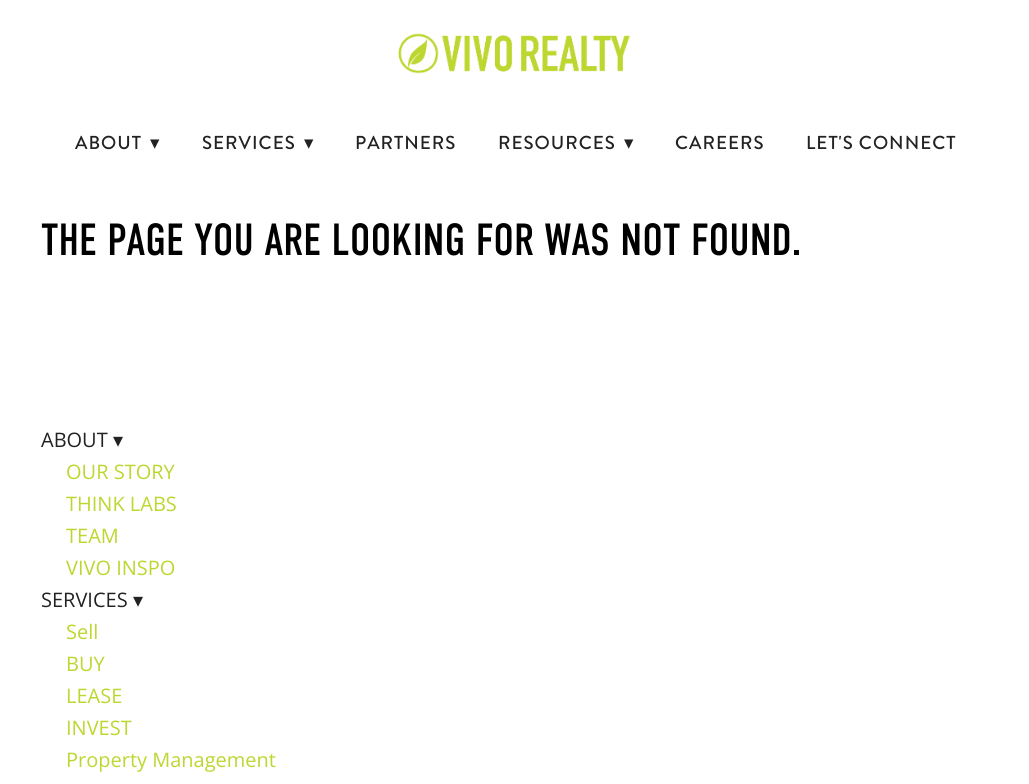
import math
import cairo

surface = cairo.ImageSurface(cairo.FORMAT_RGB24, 1029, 784)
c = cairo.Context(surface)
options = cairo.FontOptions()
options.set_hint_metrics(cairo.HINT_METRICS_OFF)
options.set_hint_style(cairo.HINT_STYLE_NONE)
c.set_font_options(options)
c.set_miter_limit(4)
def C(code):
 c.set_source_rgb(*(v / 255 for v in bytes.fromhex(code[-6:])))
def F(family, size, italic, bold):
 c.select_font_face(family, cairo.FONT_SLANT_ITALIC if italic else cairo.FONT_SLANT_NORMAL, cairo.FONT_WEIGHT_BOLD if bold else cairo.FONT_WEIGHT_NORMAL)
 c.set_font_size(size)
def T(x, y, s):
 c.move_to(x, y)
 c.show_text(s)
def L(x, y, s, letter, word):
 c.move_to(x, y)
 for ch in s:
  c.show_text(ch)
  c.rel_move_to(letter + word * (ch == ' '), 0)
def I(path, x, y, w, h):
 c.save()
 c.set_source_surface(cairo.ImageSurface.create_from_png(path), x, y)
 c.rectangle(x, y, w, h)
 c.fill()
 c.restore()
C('ffffff')
c.paint()
I('1.png',398,33,233,41)
F('Brandon Grotesque Medium',18.75,0,0)
C('222222')
L(75,149,'ABOUT',1,0)
F('DejaVu Sans',18.75,0,0)
L(150,149,'▾',1,0)
F('Brandon Grotesque Medium',18.75,0,0)
L(202,149,'SERVICES',1,0)
F('DejaVu Sans',18.75,0,0)
L(304,149,'▾',1,0)
F('Brandon Grotesque Medium',18.75,0,0)
L(355,149,'PARTNERS',1,0)
L(498,149,'RESOURCES',1,0)
F('DejaVu Sans',18.75,0,0)
L(624,149,'▾',1,0)
F('Brandon Grotesque Medium',18.75,0,0)
L(675,149,'CAREERS',1,0)
L(806,149,'LET\'S CONNECT',1,0)
F('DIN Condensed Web',45,0,0)
C('000000')
T(41,255,'THE PAGE YOU ARE LOOKING FOR WAS NOT FOUND.')
F('Open Sans',20,0,0)
C('222222')
T(41,447,'ABOUT')
F('DejaVu Sans',20,0,0)
T(113,447,'▾')
F('Open Sans',20,0,0)
C('bed630')
T(66,479,'OUR STORY')
T(66,511,'THINK LABS')
T(66,543,'TEAM')
T(66,575,'VIVO INSPO')
C('222222')
T(41,607,'SERVICES')
F('DejaVu Sans',20,0,0)
T(133,607,'▾')
F('Open Sans',20,0,0)
C('bed630')
T(66,639,'Sell')
T(66,671,'BUY')
T(66,703,'LEASE')
T(66,735,'INVEST')
T(66,767,'Property Management')
surface.write_to_png('o.png')
